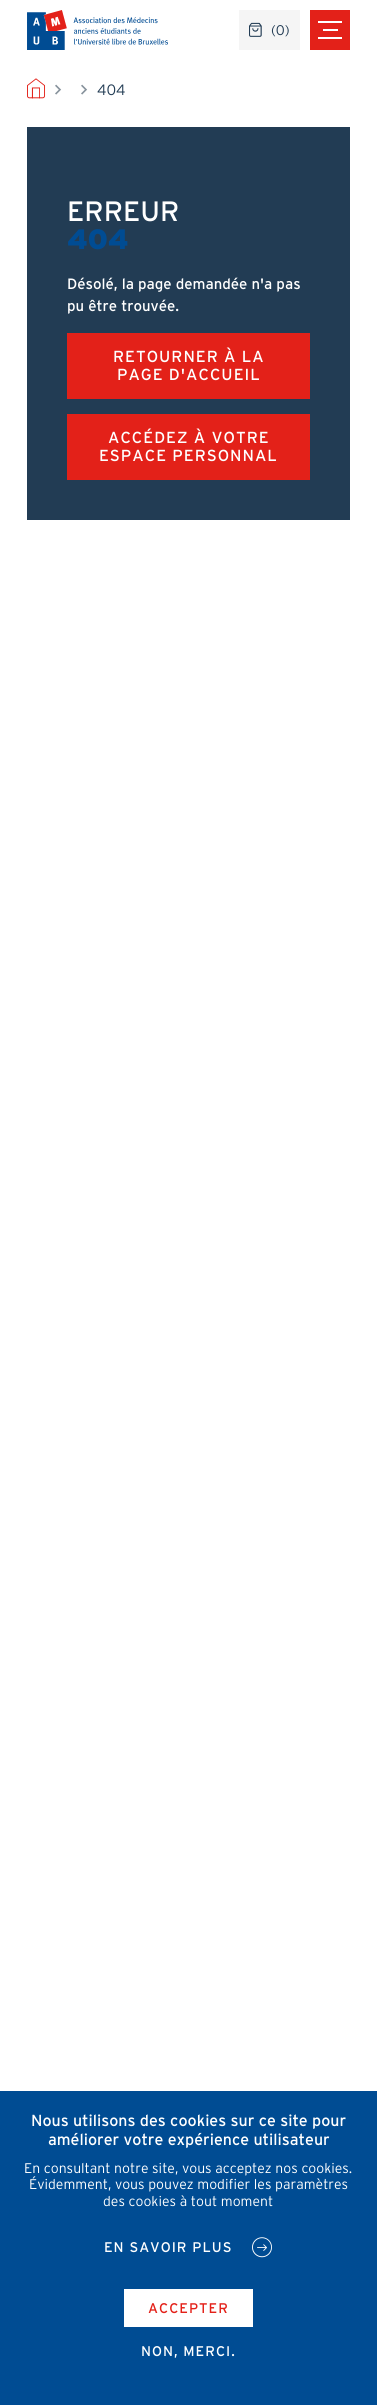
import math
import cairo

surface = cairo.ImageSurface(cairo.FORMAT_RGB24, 377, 2405)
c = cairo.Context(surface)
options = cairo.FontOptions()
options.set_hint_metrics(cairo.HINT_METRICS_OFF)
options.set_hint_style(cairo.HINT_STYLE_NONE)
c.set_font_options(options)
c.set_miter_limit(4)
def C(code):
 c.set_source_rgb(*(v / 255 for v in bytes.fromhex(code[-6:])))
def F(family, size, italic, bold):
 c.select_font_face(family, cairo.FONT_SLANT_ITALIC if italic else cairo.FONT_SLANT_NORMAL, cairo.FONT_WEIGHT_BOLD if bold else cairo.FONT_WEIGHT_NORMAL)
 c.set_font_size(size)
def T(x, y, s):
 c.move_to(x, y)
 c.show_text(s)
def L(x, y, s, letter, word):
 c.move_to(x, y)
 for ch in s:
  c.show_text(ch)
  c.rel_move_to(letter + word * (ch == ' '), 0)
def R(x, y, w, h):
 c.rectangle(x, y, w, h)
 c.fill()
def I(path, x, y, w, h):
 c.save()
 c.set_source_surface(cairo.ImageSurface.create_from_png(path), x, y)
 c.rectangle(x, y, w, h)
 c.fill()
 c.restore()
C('ffffff')
c.paint()
C('f5f5f5')
R(239,10,61,40)
I('1.png',249,22,13,15)
F('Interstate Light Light',14,0,0)
C('223c54')
T(271,35,'(0)')
I('2.png',27,10,141,40)
C('e32119')
R(310,10,40,40)
C('ffffff')
R(323,29,15,2)
R(318,21,24,2)
R(318,37,24,2)
F('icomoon',20,0,0)
C('e32119')
T(27,97,'*')
F('icomoon',10,0,0)
C('87929c')
T(55,94,'>')
T(81,94,'>')
F('Interstate Light Light',15,0,0)
C('223c54')
T(97,95,'404')
R(27,127,323,393)
F('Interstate',28,0,0)
C('ffffff')
T(67,221,'ERREUR')
F('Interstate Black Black',28,0,0)
C('004c93')
T(67,249,'404')
F('Interstate',15,0,0)
C('ffffff')
T(67,289,'Désolé, la page demandée n\'a pas')
T(67,311,'pu être trouvée.')
C('e32119')
R(67,333,243,66)
F('Interstate',16,0,0)
C('ffffff')
L(113,362,'RETOURNER À LA',1,0)
L(117,380,'PAGE D\'ACCUEIL',1,0)
C('e32119')
R(67,414,243,66)
C('ffffff')
L(108,443,'ACCÉDEZ À VOTRE',1,0)
L(99,461,'ESPACE PERSONNAL',1,0)
C('004c93')
R(0,2091,377,314)
C('ffffff')
T(31,2126,'Nous utilisons des cookies sur ce site pour')
T(48,2145,'améliorer votre expérience utilisateur')
F('Interstate Light Light',14,0,0)
T(24,2173,'En consultant notre site, vous acceptez nos cookies.')
T(29,2189,'Évidemment, vous pouvez modifier les paramètres')
T(103,2206,'des cookies à tout moment')
F('Interstate',14,0,0)
L(104,2252,'EN SAVOIR PLUS',1,0)
I('3.png',252,2237,20,21)
R(124,2289,129,38)
C('e32119')
L(148,2313,'ACCEPTER',1,0)
C('ffffff')
L(141,2356,'NON, MERCI.',1,0)
surface.write_to_png('o.png')
